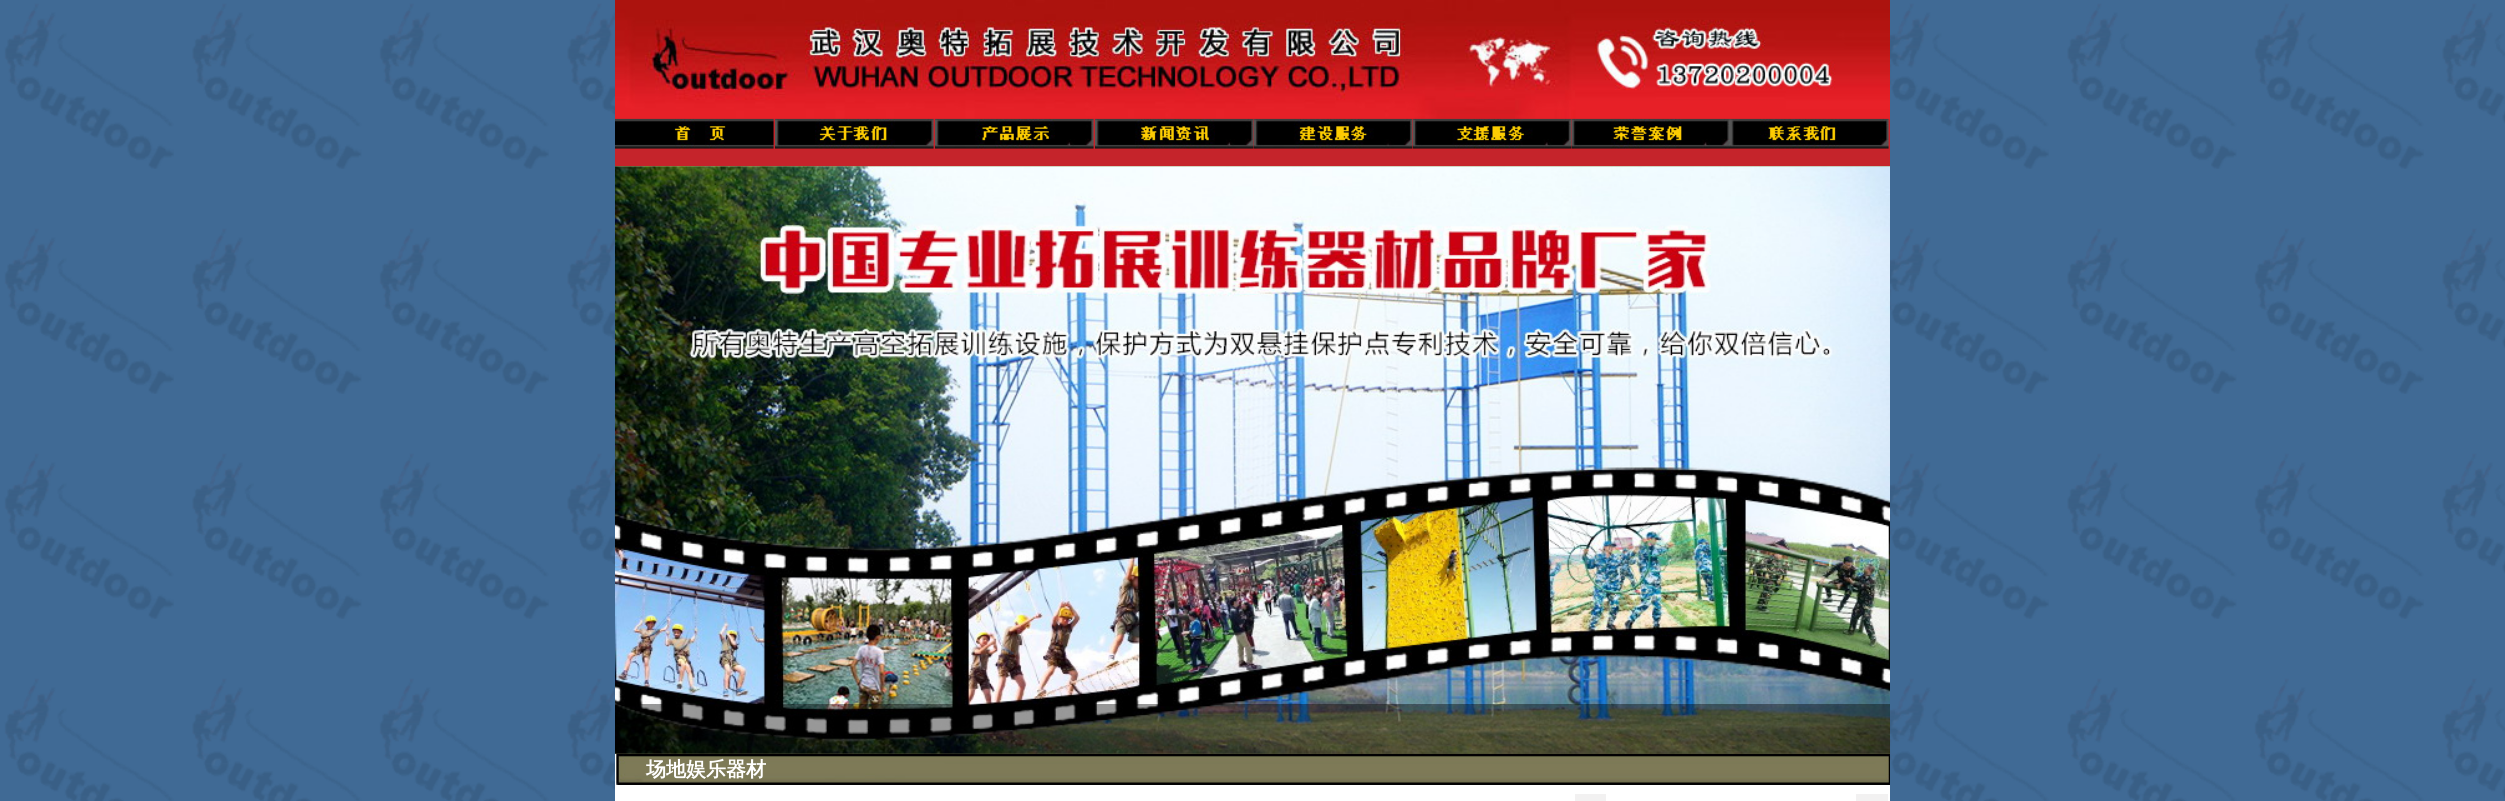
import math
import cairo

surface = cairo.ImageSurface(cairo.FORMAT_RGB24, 2505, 801)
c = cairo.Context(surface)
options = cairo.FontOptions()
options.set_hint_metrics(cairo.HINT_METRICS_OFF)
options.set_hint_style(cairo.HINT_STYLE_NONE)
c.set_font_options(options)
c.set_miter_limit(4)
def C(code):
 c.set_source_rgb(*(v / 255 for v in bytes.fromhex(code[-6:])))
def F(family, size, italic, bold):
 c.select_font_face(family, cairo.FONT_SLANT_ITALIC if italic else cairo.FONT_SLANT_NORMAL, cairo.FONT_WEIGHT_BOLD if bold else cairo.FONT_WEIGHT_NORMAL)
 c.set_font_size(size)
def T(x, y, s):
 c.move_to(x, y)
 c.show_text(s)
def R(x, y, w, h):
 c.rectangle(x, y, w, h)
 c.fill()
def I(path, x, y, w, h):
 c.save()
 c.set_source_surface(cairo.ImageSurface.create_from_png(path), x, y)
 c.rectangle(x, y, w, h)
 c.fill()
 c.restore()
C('ffffff')
c.paint()
I('1.png',0,0,2505,801)
C('c5242b')
R(615,118,1275,48)
I('2.png',615,0,1275,119)
I('3.png',615,118,159,31)
I('4.png',775,118,159,31)
I('5.png',935,118,159,31)
I('6.png',1095,118,159,31)
I('7.png',1253,118,160,31)
I('8.png',1412,118,160,31)
I('9.png',1571,118,159,31)
I('10.png',1730,118,159,31)
C('a19f6f')
R(615,166,1275,588)
I('12.png',615,753,1275,32)
I('11.png',615,166,1275,588)
c.set_source_rgba(0,0,0,0.4)
R(615,704,1275,50)
C('ffffff')
R(615,785,1275,16)
F('WenQuanYi Zen Hei',20,0,1)
T(646,776,'场地娱乐器材')
C('f2f1f1')
R(1575,794,313,7)
C('ffffff')
R(1606,794,250,7)
surface.write_to_png('o.png')
